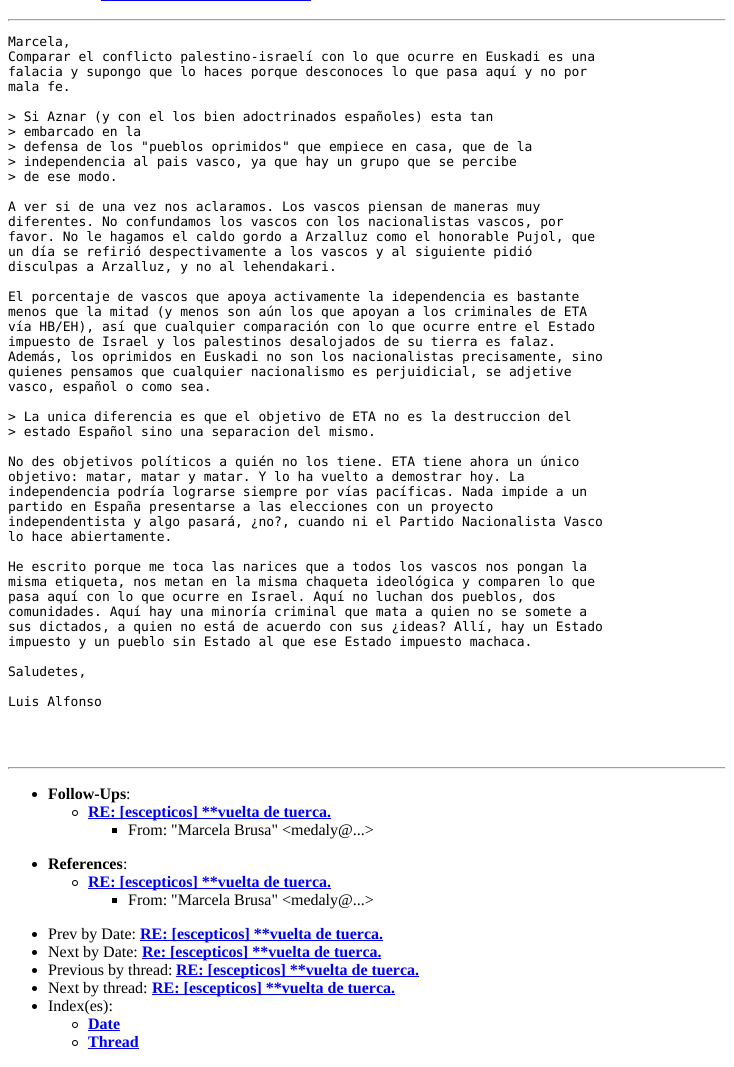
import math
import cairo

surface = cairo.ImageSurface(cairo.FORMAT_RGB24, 734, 1067)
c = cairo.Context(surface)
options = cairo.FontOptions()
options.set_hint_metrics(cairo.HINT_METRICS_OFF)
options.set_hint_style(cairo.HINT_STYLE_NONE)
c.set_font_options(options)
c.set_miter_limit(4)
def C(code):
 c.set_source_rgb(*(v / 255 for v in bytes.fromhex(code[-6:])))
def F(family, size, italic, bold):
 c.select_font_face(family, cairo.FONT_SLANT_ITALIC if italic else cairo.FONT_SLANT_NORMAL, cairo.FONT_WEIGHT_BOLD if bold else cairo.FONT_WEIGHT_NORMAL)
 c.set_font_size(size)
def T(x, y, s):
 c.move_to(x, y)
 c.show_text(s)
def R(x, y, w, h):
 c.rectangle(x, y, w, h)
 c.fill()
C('ffffff')
c.paint()
C('0000ee')
R(101,0,210,1)
C('9f9f9f')
R(8,19,718,1)
C('eeeeee')
R(725,19,1,2)
R(8,20,718,1)
C('9f9f9f')
R(8,19,1,2)
F('DejaVu Sans Mono',13,0,0)
C('000000')
T(8,46,'Marcela,')
T(8,61,'Comparar el conflicto palestino-israelí con lo que ocurre en Euskadi es una')
T(8,76,'falacia y supongo que lo haces porque desconoces lo que pasa aquí y no por')
T(8,91,'mala fe.')
T(8,121,'> Si Aznar (y con el los bien adoctrinados españoles) esta tan')
T(8,136,'> embarcado en la')
T(8,151,'> defensa de los "pueblos oprimidos" que empiece en casa, que de la')
T(8,166,'> independencia al pais vasco, ya que hay un grupo que se percibe')
T(8,181,'> de ese modo.')
T(8,211,'A ver si de una vez nos aclaramos. Los vascos piensan de maneras muy')
T(8,226,'diferentes. No confundamos los vascos con los nacionalistas vascos, por')
T(8,241,'favor. No le hagamos el caldo gordo a Arzalluz como el honorable Pujol, que')
T(8,256,'un día se refirió despectivamente a los vascos y al siguiente pidió')
T(8,271,'disculpas a Arzalluz, y no al lehendakari.')
T(8,301,'El porcentaje de vascos que apoya activamente la idependencia es bastante')
T(8,316,'menos que la mitad (y menos son aún los que apoyan a los criminales de ETA')
T(8,331,'vía HB/EH), así que cualquier comparación con lo que ocurre entre el Estado')
T(8,346,'impuesto de Israel y los palestinos desalojados de su tierra es falaz.')
T(8,361,'Además, los oprimidos en Euskadi no son los nacionalistas precisamente, sino')
T(8,376,'quienes pensamos que cualquier nacionalismo es perjuidicial, se adjetive')
T(8,391,'vasco, español o como sea.')
T(8,421,'> La unica diferencia es que el objetivo de ETA no es la destruccion del')
T(8,436,'> estado Español sino una separacion del mismo.')
T(8,466,'No des objetivos políticos a quién no los tiene. ETA tiene ahora un único')
T(8,481,'objetivo: matar, matar y matar. Y lo ha vuelto a demostrar hoy. La')
T(8,496,'independencia podría lograrse siempre por vías pacíficas. Nada impide a un')
T(8,511,'partido en España presentarse a las elecciones con un proyecto')
T(8,526,'independentista y algo pasará, ¿no?, cuando ni el Partido Nacionalista Vasco')
T(8,541,'lo hace abiertamente.')
T(8,571,'He escrito porque me toca las narices que a todos los vascos nos pongan la')
T(8,586,'misma etiqueta, nos metan en la misma chaqueta ideológica y comparen lo que')
T(8,601,'pasa aquí con lo que ocurre en Israel. Aquí no luchan dos pueblos, dos')
T(8,616,'comunidades. Aquí hay una minoría criminal que mata a quien no se somete a')
T(8,631,'sus dictados, a quien no está de acuerdo con sus ¿ideas? Allí, hay un Estado')
T(8,646,'impuesto y un pueblo sin Estado al que ese Estado impuesto machaca.')
T(8,676,'Saludetes,')
T(8,706,'Luis Alfonso')
C('9f9f9f')
R(8,767,718,1)
C('eeeeee')
R(725,767,1,2)
R(8,768,718,1)
C('9f9f9f')
R(8,767,1,2)
C('000000')
c.new_path()
c.arc(34.5,794.5,2.5,0,2 * math.pi)
c.fill()
F('Liberation Serif',16,0,1)
T(48,799,'Follow-Ups')
F('Liberation Serif',16,0,0)
T(126,799,':')
c.new_path()
c.arc(75,813,2.5,0,2 * math.pi)
c.set_line_width(1)
c.stroke()
C('0000ee')
R(88,818,243,1)
F('Liberation Serif',16,0,1)
T(88,817,'RE: [escepticos] **vuelta de tuerca.')
C('000000')
R(112,828,5,5)
F('Liberation Serif',16,0,0)
T(128,835,'From: "Marcela Brusa" <medaly@...>')
c.new_path()
c.arc(34.5,864.5,2.5,0,2 * math.pi)
c.fill()
F('Liberation Serif',16,0,1)
T(48,869,'References')
F('Liberation Serif',16,0,0)
T(123,869,':')
c.new_path()
c.arc(75,883,2.5,0,2 * math.pi)
c.stroke()
C('0000ee')
R(88,888,243,1)
F('Liberation Serif',16,0,1)
T(88,887,'RE: [escepticos] **vuelta de tuerca.')
C('000000')
R(112,898,5,5)
F('Liberation Serif',16,0,0)
T(128,905,'From: "Marcela Brusa" <medaly@...>')
c.new_path()
c.arc(34.5,934.5,2.5,0,2 * math.pi)
c.fill()
T(48,939,'Prev by Date:')
C('0000ee')
R(140,940,243,1)
F('Liberation Serif',16,0,1)
T(140,939,'RE: [escepticos] **vuelta de tuerca.')
C('000000')
c.new_path()
c.arc(34.5,952.5,2.5,0,2 * math.pi)
c.fill()
F('Liberation Serif',16,0,0)
T(48,957,'Next by Date:')
C('0000ee')
R(142,958,239,1)
F('Liberation Serif',16,0,1)
T(142,957,'Re: [escepticos] **vuelta de tuerca.')
C('000000')
c.new_path()
c.arc(34.5,970.5,2.5,0,2 * math.pi)
c.fill()
F('Liberation Serif',16,0,0)
T(48,975,'Previous by thread:')
C('0000ee')
R(176,976,243,1)
F('Liberation Serif',16,0,1)
T(176,975,'RE: [escepticos] **vuelta de tuerca.')
C('000000')
c.new_path()
c.arc(34.5,988.5,2.5,0,2 * math.pi)
c.fill()
F('Liberation Serif',16,0,0)
T(48,993,'Next by thread:')
C('0000ee')
R(152,994,243,1)
F('Liberation Serif',16,0,1)
T(152,993,'RE: [escepticos] **vuelta de tuerca.')
C('000000')
c.new_path()
c.arc(34.5,1006.5,2.5,0,2 * math.pi)
c.fill()
F('Liberation Serif',16,0,0)
T(48,1011,'Index(es):')
c.new_path()
c.arc(75,1025,2.5,0,2 * math.pi)
c.stroke()
F('Liberation Serif',16,0,1)
C('0000ee')
T(88,1029,'Date')
R(88,1030,32,1)
c.new_path()
c.arc(75,1043,2.5,0,2 * math.pi)
C('000000')
c.stroke()
C('0000ee')
T(88,1047,'Thread')
R(88,1048,51,1)
surface.write_to_png('o.png')
